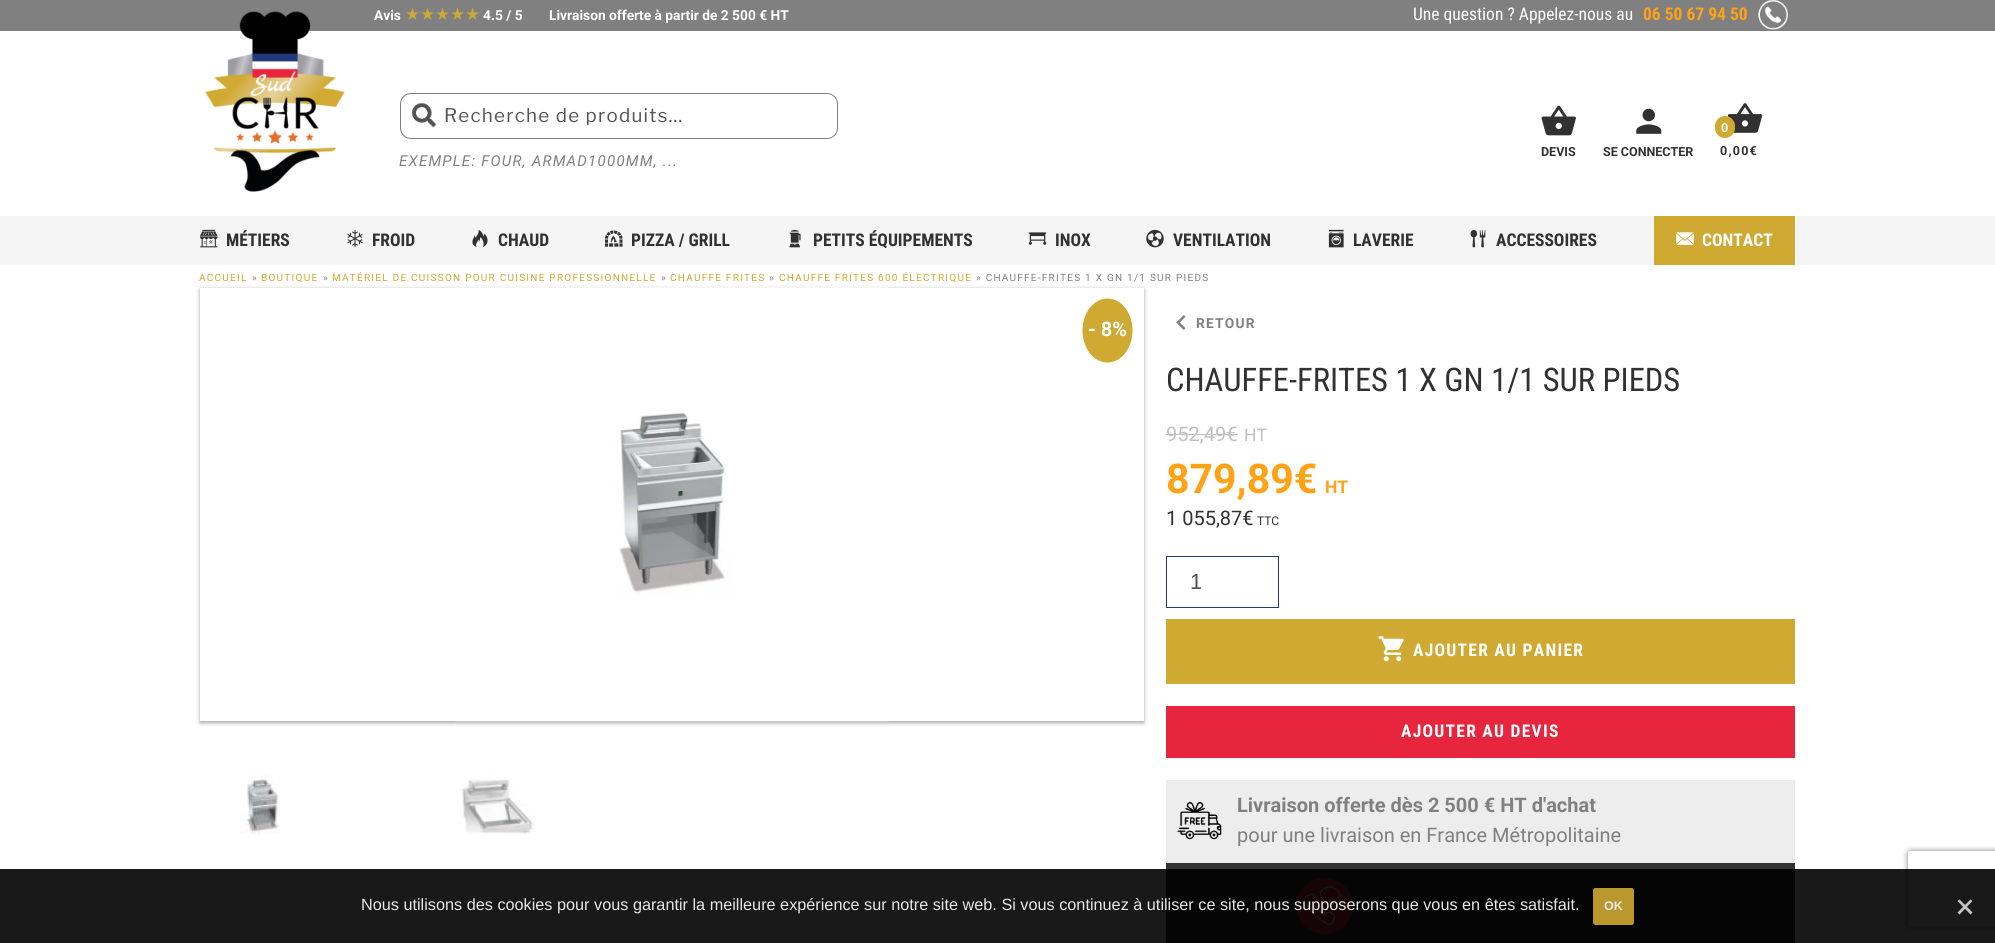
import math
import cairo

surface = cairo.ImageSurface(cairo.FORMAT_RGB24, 1995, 943)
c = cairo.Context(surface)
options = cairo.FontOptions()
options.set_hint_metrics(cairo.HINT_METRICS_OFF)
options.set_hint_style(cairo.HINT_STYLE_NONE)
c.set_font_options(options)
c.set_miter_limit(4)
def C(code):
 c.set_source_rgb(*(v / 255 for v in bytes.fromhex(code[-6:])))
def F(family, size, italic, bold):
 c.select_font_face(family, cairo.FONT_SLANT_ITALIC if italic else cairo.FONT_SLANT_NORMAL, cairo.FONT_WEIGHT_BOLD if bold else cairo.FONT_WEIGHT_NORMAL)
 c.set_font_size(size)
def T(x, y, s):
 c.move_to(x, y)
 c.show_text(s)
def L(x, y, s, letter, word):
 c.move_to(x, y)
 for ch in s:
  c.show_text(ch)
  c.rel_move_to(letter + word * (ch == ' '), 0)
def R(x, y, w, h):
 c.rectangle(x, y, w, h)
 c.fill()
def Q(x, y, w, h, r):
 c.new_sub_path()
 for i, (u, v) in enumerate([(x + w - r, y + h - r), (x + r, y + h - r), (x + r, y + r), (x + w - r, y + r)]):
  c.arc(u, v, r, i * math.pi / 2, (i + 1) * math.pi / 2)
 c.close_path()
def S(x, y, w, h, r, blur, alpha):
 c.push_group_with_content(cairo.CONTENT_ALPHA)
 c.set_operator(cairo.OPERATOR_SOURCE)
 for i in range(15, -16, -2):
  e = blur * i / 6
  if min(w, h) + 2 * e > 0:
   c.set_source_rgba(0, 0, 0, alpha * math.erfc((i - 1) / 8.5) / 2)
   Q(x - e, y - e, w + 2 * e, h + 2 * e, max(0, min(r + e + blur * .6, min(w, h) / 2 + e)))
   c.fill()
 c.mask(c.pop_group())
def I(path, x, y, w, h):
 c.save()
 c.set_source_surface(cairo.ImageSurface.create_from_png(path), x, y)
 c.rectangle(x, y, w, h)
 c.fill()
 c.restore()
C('ffffff')
c.paint()
C('808080')
R(0,0,1995,31)
I('1.png',205,11,140,181)
F('Roboto',13.75,0,1)
C('ffffff')
T(374,20,'Avis')
I('2.png',406,7,13,13)
I('2.png',421,7,13,13)
I('2.png',436,7,13,13)
I('2.png',451,7,13,13)
I('2.png',466,7,13,13)
T(483,20,'4.5 / 5')
T(549,20,'Livraison offerte à partir de 2 500 € HT')
F('Roboto Condensed',17.5,0,0)
T(1413,20,'Une question ? Appelez-nous au')
F('Roboto Condensed',17.5,0,1)
C('ffa216')
T(1643,20,'06 50 67 94 50')
I('3.png',1758,0,30,30)
Q(400.5,93.5,437,45,10.5)
C('808080')
c.set_line_width(1)
c.stroke()
I('4.png',411,103,26,25)
F('Libre Franklin Thin',18.75,0,0)
C('515151')
L(444,122,'Recherche de produits…',1.25,0)
F('Roboto',15,1,0)
C('808080')
L(399,166,'EXEMPLE: FOUR, ARMAD1000MM, ...',1.25,0)
I('5.png',1541,105,35,31)
F('Roboto',12.5,0,1)
C('313131')
T(1541,156,'DEVIS')
I('6.png',1636,108,26,26)
T(1603,156,'SE CONNECTER')
I('7.png',1727,103,36,30)
C('cfa932')
Q(1715,116,20,22,10)
c.fill()
C('ffffff')
L(1721,132,'0',1.25,0)
C('313131')
L(1720,155,'0,00€',1.25,0)
C('f5f5f5')
R(0,216,1995,49)
I('8.png',200,229,18,19)
F('Roboto Condensed',17.5,0,1)
C('313131')
T(226,246,'MÉTIERS')
I('9.png',347,229,16,19)
T(372,246,'FROID')
I('10.png',472,229,16,19)
T(498,246,'CHAUD')
I('11.png',605,230,18,17)
T(631,246,'PIZZA / GRILL')
I('12.png',789,229,12,19)
T(813,246,'PETITS ÉQUIPEMENTS')
I('13.png',1028,232,19,13)
T(1055,246,'INOX')
I('14.png',1146,229,18,19)
T(1173,246,'VENTILATION')
I('15.png',1328,229,16,19)
T(1353,246,'LAVERIE')
I('16.png',1470,229,16,19)
T(1496,246,'ACCESSOIRES')
C('cfa932')
R(1654,216,141,49)
I('17.png',1676,232,18,13)
C('ffffff')
T(1702,246,'CONTACT')
F('Roboto',10,0,0)
C('cfa932')
L(199,281,'ACCUEIL',1.25,0)
C('808080')
L(252,281,'»',1.25,0)
C('000000')
S(200,289,944,434,0,2,.35)
C('cfa932')
L(261,281,'BOUTIQUE',1.25,0)
C('808080')
L(323,281,'»',1.25,0)
C('cfa932')
L(332,281,'MATÉRIEL DE CUISSON POUR CUISINE PROFESSIONNELLE',1.25,0)
C('808080')
L(661,281,'»',1.25,0)
C('cfa932')
L(670,281,'CHAUFFE FRITES',1.25,0)
C('808080')
L(769,281,'»',1.25,0)
C('cfa932')
L(779,281,'CHAUFFE FRITES 600 ÉLECTRIQUE',1.25,0)
C('808080')
L(976,281,'» CHAUFFE-FRITES 1 X GN 1/1 SUR PIEDS',1.25,0)
C('ffffff')
R(200,288,944,433)
I('18.png',455,287,434,435)
I('19.png',240,774,40,60)
I('20.png',459,775,76,59)
C('cfa932')
c.new_path()
c.move_to(1107.5,298.5)
c.curve_to(1121.5,298.5,1132.5,313,1132.5,330.5)
c.curve_to(1132.5,348,1121.5,362.5,1107.5,362.5)
c.curve_to(1093.5,362.5,1082.5,348,1082.5,330.5)
c.curve_to(1082.5,313,1093.5,298.5,1107.5,298.5)
c.close_path()
c.fill()
F('Roboto',20,0,1)
C('ffffff')
T(1088,336,'- 8%')
I('21.png',1176,315,10,15)
F('Roboto',13.75,0,1)
C('808080')
L(1196,328,'RETOUR',1.25,0)
F('Roboto Condensed',32.5,0,0)
C('313131')
T(1166,391,'CHAUFFE-FRITES 1 X GN 1/1 SUR PIEDS')
F('Roboto',20,0,0)
C('c0c0c0')
T(1166,441,'952,49€')
R(1166,434,72,1)
F('Roboto',17.5,0,0)
T(1244,441,'HT')
F('Roboto',41,0,1)
C('ffa216')
T(1166,493,'879,89€')
F('Roboto',17.5,0,1)
T(1325,493,'HT')
F('Roboto',20,0,0)
C('313131')
T(1166,525,'1 055,87€')
F('Roboto',12,0,0)
T(1257,525,'TTC')
c.rectangle(1166.5,556.5,112,51)
C('26377e')
c.stroke()
F('Liberation Sans',22,0,0)
C('515151')
L(1190,589,'1',1.25,0)
C('cfa932')
R(1166,619,629,65)
I('22.png',1378,636,26,26)
F('Roboto Condensed',17.5,0,1)
C('ffffff')
L(1413,656,'AJOUTER AU PANIER',1.25,0)
C('e7253c')
R(1166,706,629,52)
C('ffffff')
L(1401,737,'AJOUTER AU DEVIS',1.25,0)
C('ededed')
R(1166,780,629,83)
I('23.png',1177,801,45,39)
F('Roboto',20,0,1)
C('808080')
T(1237,812,'Livraison offerte dès 2 500 € HT d\'achat')
F('Roboto',20,0,0)
T(1237,842,'pour une livraison en France Métropolitaine')
C('313131')
R(1166,863,629,80)
C('e7253c')
Q(1296,878,57,56,28)
c.fill()
I('24.png',1304,886,41,39)
c.save()
c.set_fill_rule(cairo.FILL_RULE_EVEN_ODD)
c.new_path()
c.move_to(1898,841)
c.line_to(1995,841)
c.line_to(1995,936)
c.line_to(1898,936)
c.close_path()
c.move_to(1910.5,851)
c.line_to(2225.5,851)
c.curve_to(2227,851,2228,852,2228,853.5)
c.line_to(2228,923.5)
c.curve_to(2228,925,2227,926,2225.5,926)
c.line_to(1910.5,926)
c.curve_to(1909,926,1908,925,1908,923.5)
c.line_to(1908,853.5)
c.curve_to(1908,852,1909,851,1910.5,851)
c.close_path()
c.clip()
C('808080')
S(1908,851,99,75,2.5,3,1)
c.restore()
c.set_source_rgba(0,0,0,0.9)
R(0,869,1995,74)
F('Liberation Sans',16.25,0,0)
C('e7e7e7')
T(361,910,'Nous utilisons des cookies pour vous garantir la meilleure expérience sur notre site web. Si vous continuez à utiliser ce site, nous supposerons que vous en êtes satisfait.')
c.set_source_rgba(0.812,0.663,0.196,0.9)
Q(1593,888,41,37,2.5)
c.fill()
F('Liberation Sans',12.5,0,1)
C('e7e7e7')
T(1604,910,'OK')
C('c6c6c6')
c.new_path()
c.move_to(1970.5,899.5)
c.line_to(1972.5,901)
c.line_to(1959.5,914.5)
c.line_to(1957.5,912.5)
c.close_path()
c.fill()
c.new_path()
c.move_to(1957.5,901)
c.line_to(1959.5,899.5)
c.line_to(1972.5,912.5)
c.line_to(1970.5,914.5)
c.close_path()
c.fill()
surface.write_to_png('o.png')
